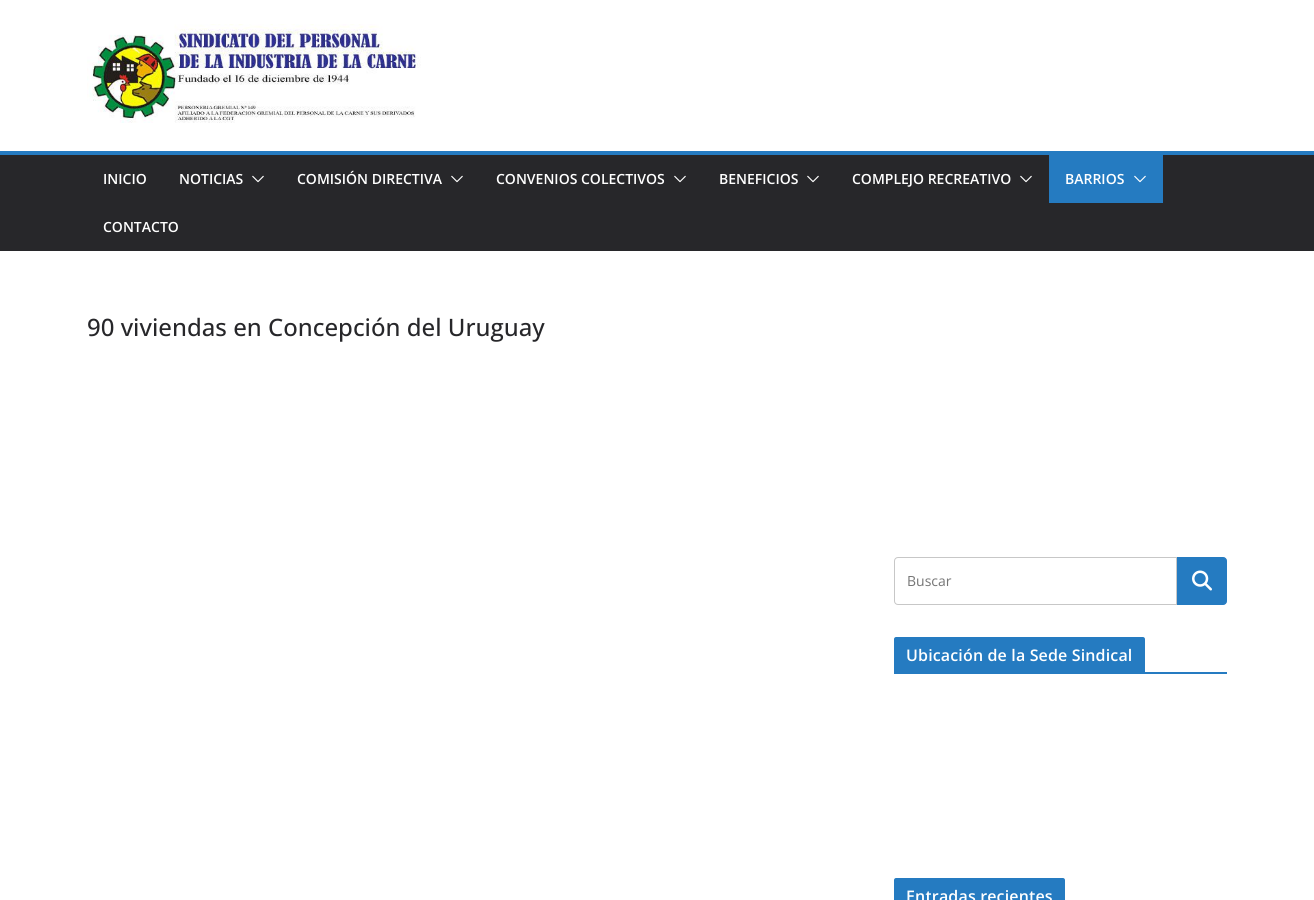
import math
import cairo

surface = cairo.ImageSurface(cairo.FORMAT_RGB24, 1314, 900)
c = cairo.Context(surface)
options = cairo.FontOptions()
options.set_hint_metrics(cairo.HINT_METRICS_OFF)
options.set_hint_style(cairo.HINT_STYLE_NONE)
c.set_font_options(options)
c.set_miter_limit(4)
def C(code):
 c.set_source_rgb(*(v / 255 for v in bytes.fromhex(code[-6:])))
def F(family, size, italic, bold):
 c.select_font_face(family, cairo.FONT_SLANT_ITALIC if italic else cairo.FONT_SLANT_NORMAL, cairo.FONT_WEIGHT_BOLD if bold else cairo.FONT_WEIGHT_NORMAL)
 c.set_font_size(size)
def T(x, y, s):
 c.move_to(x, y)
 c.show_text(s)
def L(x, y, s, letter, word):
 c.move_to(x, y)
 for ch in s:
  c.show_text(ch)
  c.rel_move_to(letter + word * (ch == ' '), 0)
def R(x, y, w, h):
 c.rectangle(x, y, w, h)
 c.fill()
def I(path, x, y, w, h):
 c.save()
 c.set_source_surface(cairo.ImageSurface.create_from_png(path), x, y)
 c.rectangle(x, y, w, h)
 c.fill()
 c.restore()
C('ffffff')
c.paint()
I('1.png',87,24,334,99)
C('27272a')
R(0,155,1314,96)
C('257bc1')
R(0,151,1314,4)
F('Open Sans SemiBold',14,0,0)
C('ffffff')
T(103,184,'INICIO')
T(179,184,'NOTICIAS')
I('2.png',252,175,12,8)
T(297,184,'COMISIÓN DIRECTIVA')
I('2.png',451,175,12,8)
T(496,184,'CONVENIOS COLECTIVOS')
I('2.png',674,175,12,8)
T(719,184,'BENEFICIOS')
I('2.png',807,175,12,8)
T(852,184,'COMPLEJO RECREATIVO')
I('2.png',1020,175,12,8)
C('257bc1')
R(1049,155,114,48)
C('ffffff')
T(1065,184,'BARRIOS')
I('3.png',1134,175,12,8)
T(103,232,'CONTACTO')
F('Open Sans Medium',24,0,0)
C('27272a')
T(87,336,'90 viviendas en Concepción del Uruguay')
c.new_path()
c.move_to(898,557.5)
c.line_to(1176.5,557.5)
c.line_to(1176.5,604.5)
c.line_to(898,604.5)
c.curve_to(896,604.5,894.5,603,894.5,601)
c.line_to(894.5,561)
c.curve_to(894.5,559,896,557.5,898,557.5)
c.close_path()
C('c7c7c7')
c.set_line_width(1)
c.stroke()
F('Open Sans',14,0,0)
C('757575')
T(907,586,'Buscar')
C('257bc1')
c.new_path()
c.move_to(1177.5,557.5)
c.line_to(1223,557.5)
c.curve_to(1225,557.5,1226.5,559,1226.5,561)
c.line_to(1226.5,601)
c.curve_to(1226.5,603,1225,604.5,1223,604.5)
c.line_to(1177.5,604.5)
c.close_path()
c.fill_preserve()
c.stroke()
I('4.png',1192,570,20,21)
R(894,672,333,2)
c.new_path()
c.move_to(896,637)
c.line_to(1143,637)
c.curve_to(1144,637,1145,638,1145,639)
c.line_to(1145,672)
c.line_to(894,672)
c.line_to(894,639)
c.curve_to(894,638,895,637,896,637)
c.close_path()
c.fill()
F('Open Sans SemiBold',16,0,0)
C('ffffff')
L(906,661,'Ubicación de la Sede Sindical',.15,0)
C('257bc1')
c.new_path()
c.move_to(896,878)
c.line_to(1063,878)
c.curve_to(1064,878,1065,879,1065,880)
c.line_to(1065,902)
c.line_to(894,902)
c.line_to(894,880)
c.curve_to(894,879,895,878,896,878)
c.close_path()
c.fill()
C('ffffff')
L(906,902,'Entradas recientes',.15,0)
surface.write_to_png('o.png')
